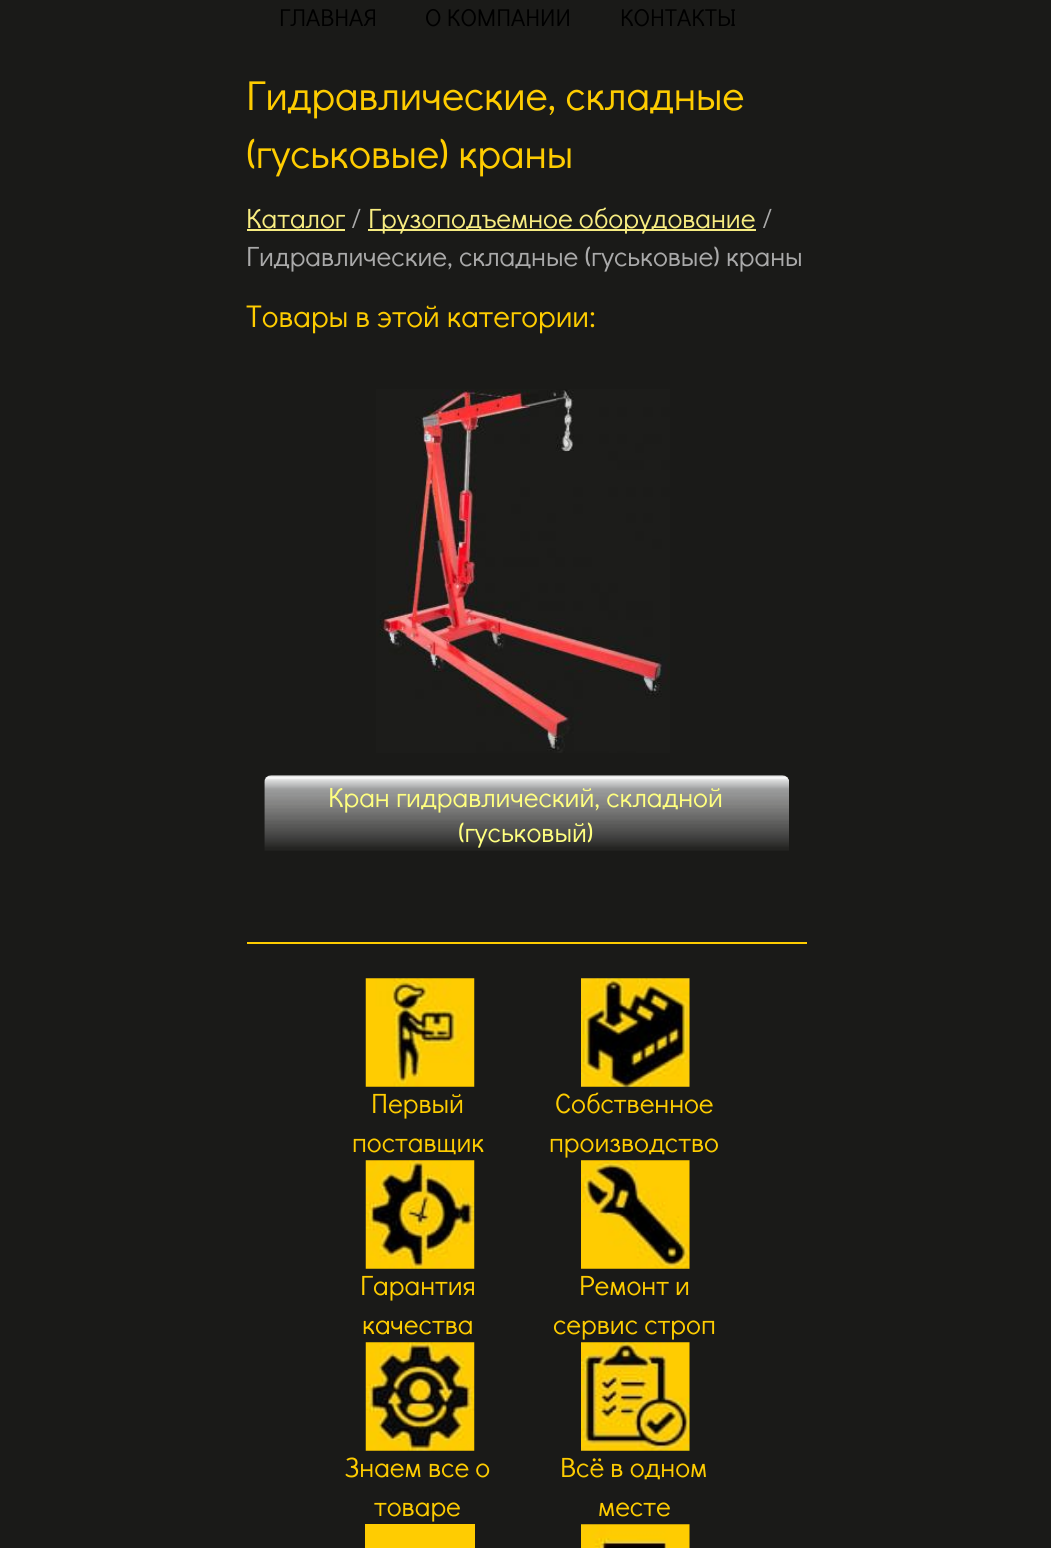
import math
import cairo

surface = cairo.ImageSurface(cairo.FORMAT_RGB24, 1051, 1548)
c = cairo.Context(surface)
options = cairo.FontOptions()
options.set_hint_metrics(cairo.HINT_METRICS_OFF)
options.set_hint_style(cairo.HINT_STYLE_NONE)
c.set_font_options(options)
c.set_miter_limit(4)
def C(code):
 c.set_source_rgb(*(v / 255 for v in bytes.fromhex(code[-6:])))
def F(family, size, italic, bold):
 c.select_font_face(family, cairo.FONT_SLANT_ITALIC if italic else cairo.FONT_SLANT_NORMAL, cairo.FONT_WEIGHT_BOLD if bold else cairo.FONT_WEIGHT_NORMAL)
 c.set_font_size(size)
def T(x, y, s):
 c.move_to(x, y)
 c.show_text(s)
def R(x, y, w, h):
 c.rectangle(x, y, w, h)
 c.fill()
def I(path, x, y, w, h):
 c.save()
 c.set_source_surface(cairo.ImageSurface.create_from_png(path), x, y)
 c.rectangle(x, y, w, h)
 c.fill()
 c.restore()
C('1a1a18')
c.paint()
F('Didact Gothic Medium',24.5,0,0)
C('000000')
T(279,26,'ГЛАВНАЯ')
T(425,26,'О КОМПАНИИ')
T(620,26,'КОНТАКТЫ')
F('Didact Gothic Medium',42,0,0)
C('fecc00')
T(246,110,'Гидравлические, складные')
T(246,168,'(гуськовые) краны')
F('Didact Gothic Medium',28,0,0)
C('f7ec81')
T(246,228,'Каталог')
R(247,229,98,2)
C('aaaaaa')
T(351,228,'/')
C('f7ec81')
R(368,229,388,2)
T(368,228,'Грузоподъемное оборудование')
C('aaaaaa')
T(762,228,'/')
T(246,266,'Гидравлические, складные (гуськовые) краны')
F('Didact Gothic Medium',31.5,0,0)
C('fecc00')
T(246,327,'Товары в этой категории:')
I('1.png',376,389,294,364)
I('2.png',264,775,525,76)
F('Didact Gothic Medium',28,0,0)
C('ffff7f')
T(328,807,'Кран гидравлический, складной')
T(458,842,'(гуськовый)')
C('fecc00')
R(247,942,560,2)
I('3.png',365,978,110,109)
T(371,1113,'Первый')
T(352,1152,'поставщик')
I('4.png',581,978,109,109)
T(555,1113,'Собственное')
T(549,1152,'производство')
I('5.png',365,1160,110,109)
T(360,1295,'Гарантия')
T(362,1334,'качества')
I('6.png',581,1160,109,109)
T(579,1295,'Ремонт и')
T(553,1334,'сервис строп')
I('7.png',365,1342,110,109)
T(345,1477,'Знаем все о')
T(374,1516,'товаре')
I('8.png',581,1342,109,109)
T(560,1477,'Всё в одном')
T(598,1516,'месте')
C('ffcc01')
R(365,1524,110,24)
I('9.png',581,1524,109,24)
surface.write_to_png('o.png')
